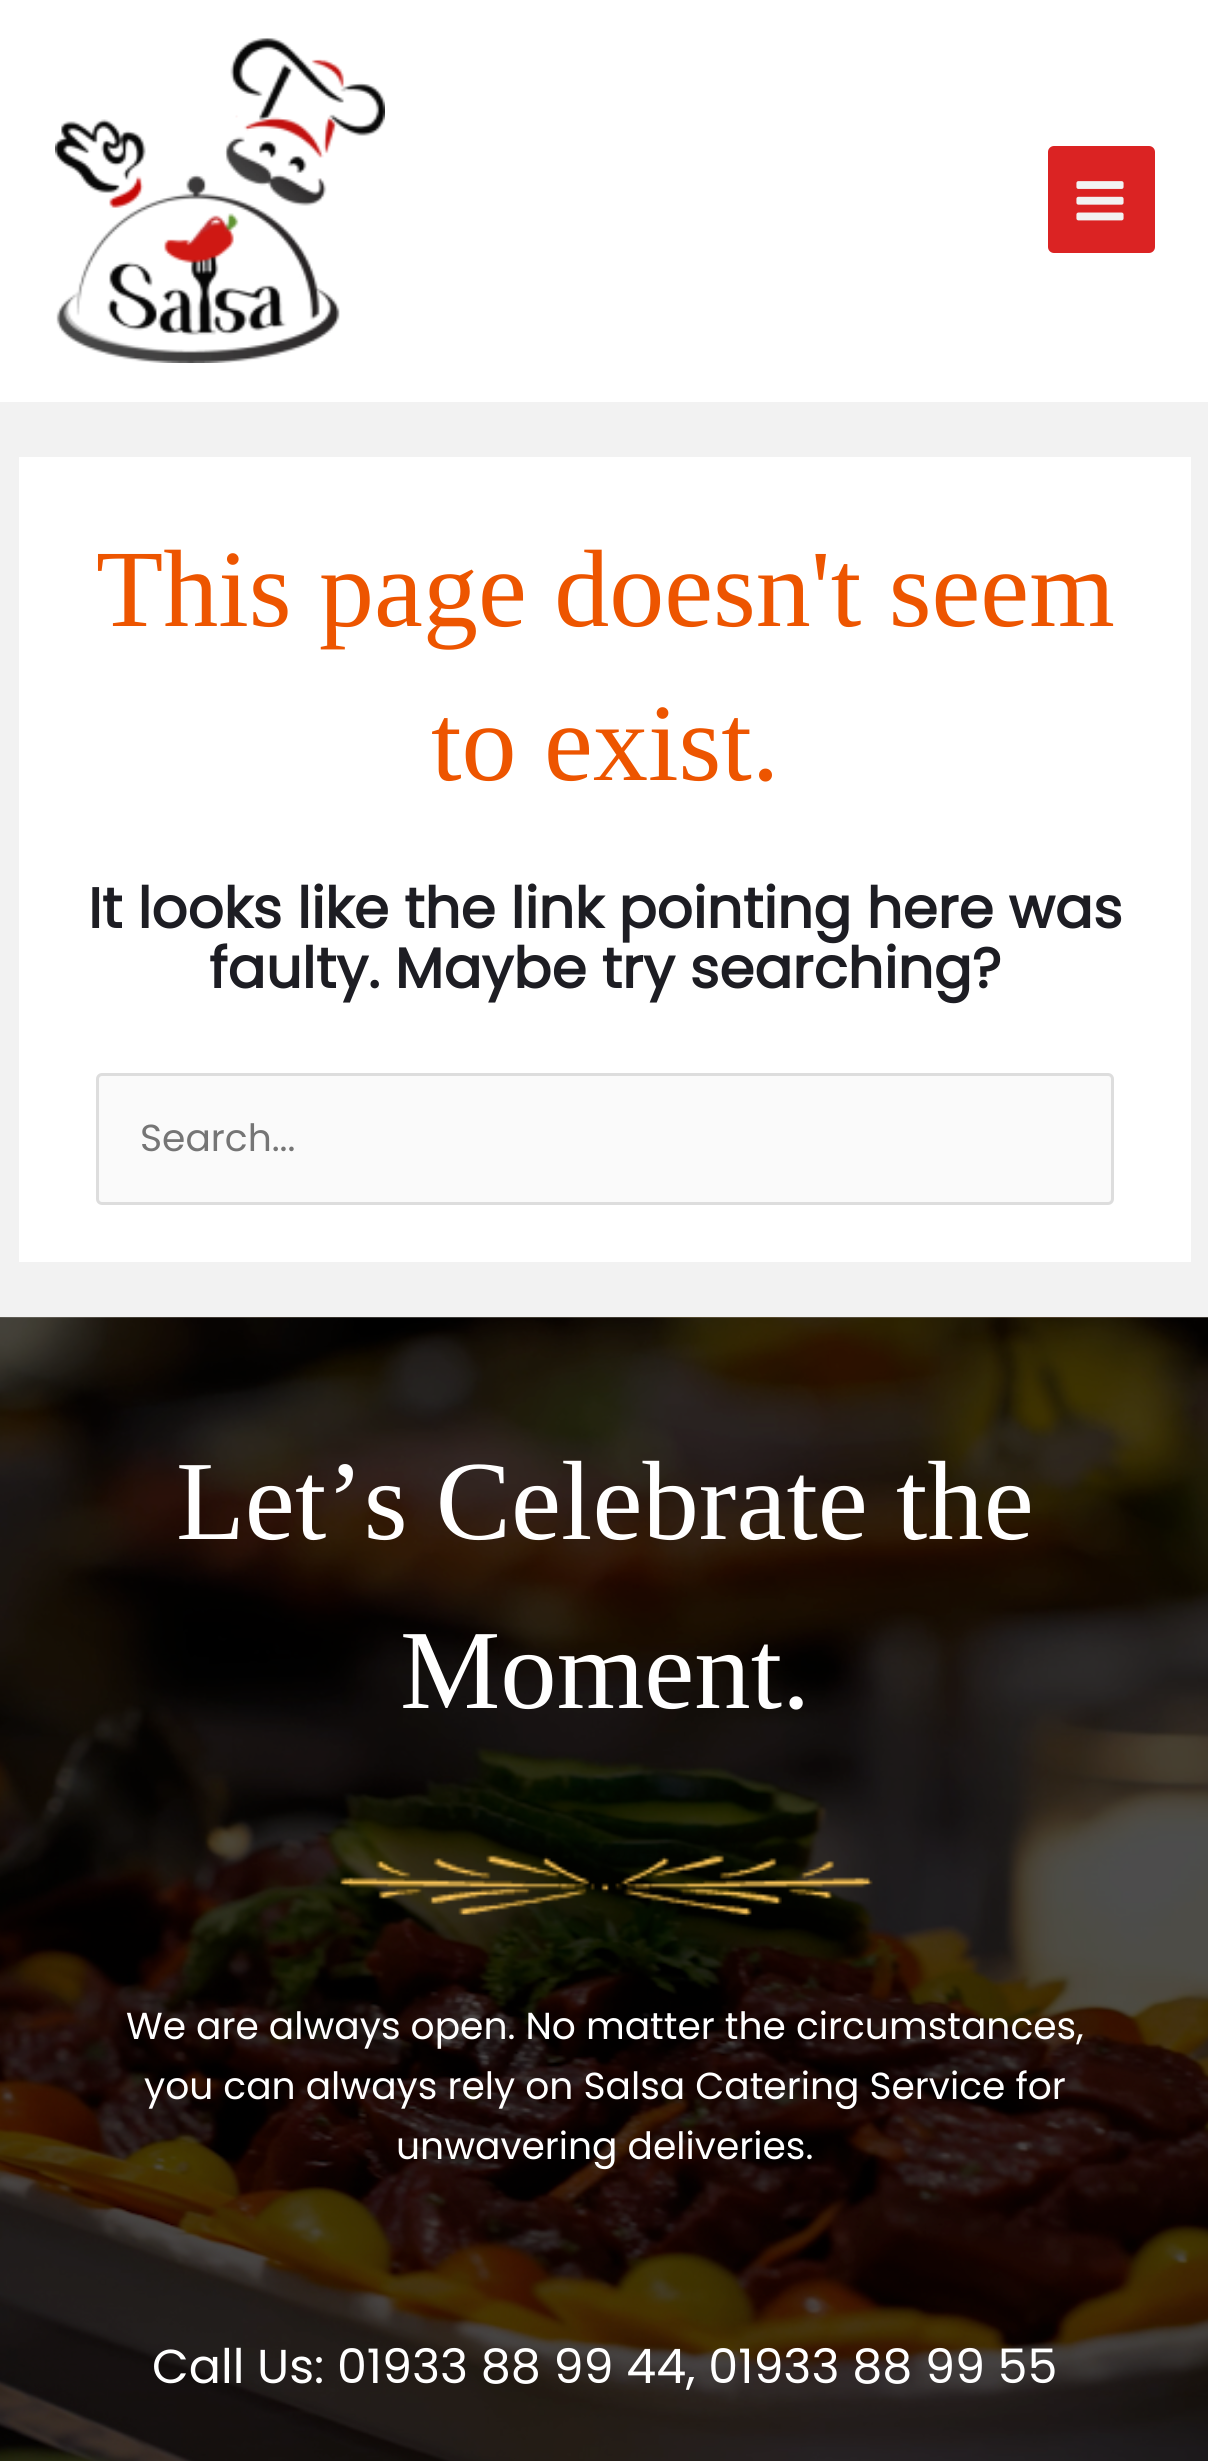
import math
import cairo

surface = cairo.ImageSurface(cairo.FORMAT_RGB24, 1208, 2461)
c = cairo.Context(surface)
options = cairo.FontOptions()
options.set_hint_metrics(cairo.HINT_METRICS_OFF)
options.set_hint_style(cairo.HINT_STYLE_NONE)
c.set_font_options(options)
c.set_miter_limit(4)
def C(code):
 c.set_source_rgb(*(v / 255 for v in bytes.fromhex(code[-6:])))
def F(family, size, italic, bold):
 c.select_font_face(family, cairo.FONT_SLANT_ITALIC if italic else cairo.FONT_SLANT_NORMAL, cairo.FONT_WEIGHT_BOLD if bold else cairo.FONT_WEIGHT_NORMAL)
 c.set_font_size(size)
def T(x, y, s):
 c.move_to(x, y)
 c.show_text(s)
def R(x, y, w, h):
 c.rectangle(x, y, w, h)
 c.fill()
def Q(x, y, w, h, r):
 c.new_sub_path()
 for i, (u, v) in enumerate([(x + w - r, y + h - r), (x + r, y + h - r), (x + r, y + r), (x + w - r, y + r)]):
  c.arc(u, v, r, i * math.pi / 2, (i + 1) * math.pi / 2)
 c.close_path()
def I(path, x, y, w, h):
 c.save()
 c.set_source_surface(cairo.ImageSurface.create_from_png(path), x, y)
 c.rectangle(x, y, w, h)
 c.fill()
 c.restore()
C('f2f2f2')
c.paint()
C('ffffff')
R(0,0,1208,402)
I('1.png',55,38,330,325)
C('db2323')
Q(1048,146,107,107,6)
c.fill()
I('2.png',1076,181,48,40)
C('ffffff')
R(19,457,1172,805)
F('Liberation Serif',110,0,0)
C('ed5500')
T(96,626,'This page doesn\'t seem')
T(431,780,'to exist.')
F('Poppins',56.4,0,1)
C('1d1d23')
T(88,928,'It looks like the link pointing here was')
T(209,988,'faulty. Maybe try searching?')
C('fafafa')
Q(97.5,1074.5,1015,129,4.5)
c.fill_preserve()
C('dddddd')
c.set_line_width(3)
c.stroke()
F('Poppins',37.6,0,0)
C('757575')
T(140,1151,'Search...')
I('3.png',0,1317,1208,1144)
F('Liberation Serif',112.75,0,0)
C('ffffff')
T(176,1539,'Let’s Celebrate the')
T(400,1708,'Moment.')
I('4.png',340,1855,533,62)
F('Poppins',37.6,0,0)
T(126,2039,'We are always open. No matter the circumstances,')
T(144,2099,'you can always rely on Salsa Catering Service for')
T(396,2159,'unwavering deliveries.')
F('Poppins',47.6,0,0)
T(152,2383,'Call Us: 01933 88 99 44, 01933 88 99 55')
surface.write_to_png('o.png')
